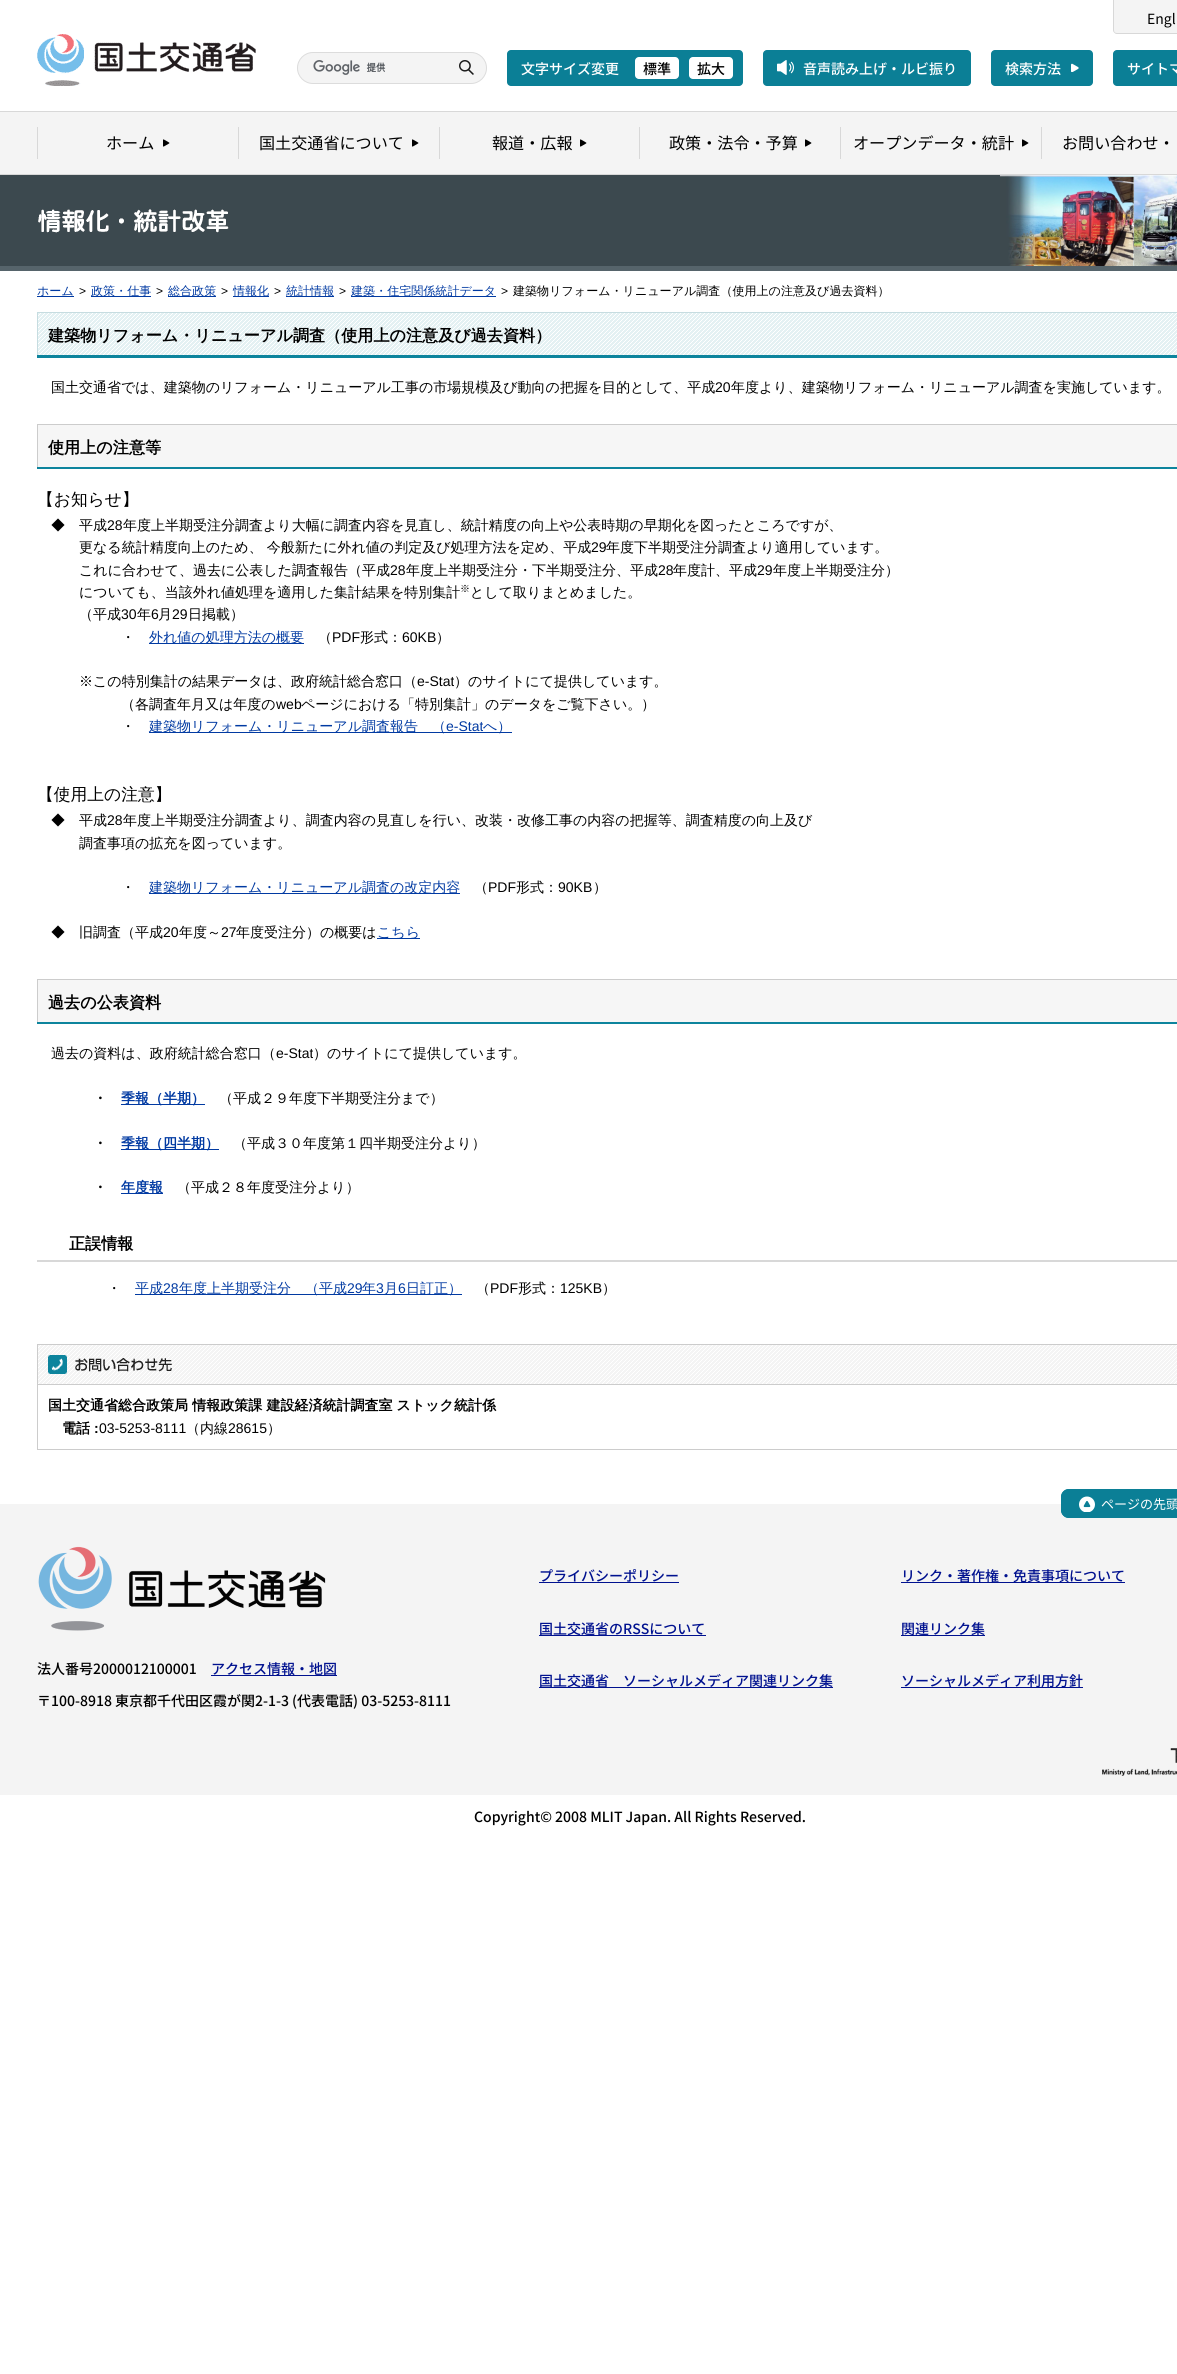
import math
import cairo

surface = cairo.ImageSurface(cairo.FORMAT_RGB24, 1177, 2374)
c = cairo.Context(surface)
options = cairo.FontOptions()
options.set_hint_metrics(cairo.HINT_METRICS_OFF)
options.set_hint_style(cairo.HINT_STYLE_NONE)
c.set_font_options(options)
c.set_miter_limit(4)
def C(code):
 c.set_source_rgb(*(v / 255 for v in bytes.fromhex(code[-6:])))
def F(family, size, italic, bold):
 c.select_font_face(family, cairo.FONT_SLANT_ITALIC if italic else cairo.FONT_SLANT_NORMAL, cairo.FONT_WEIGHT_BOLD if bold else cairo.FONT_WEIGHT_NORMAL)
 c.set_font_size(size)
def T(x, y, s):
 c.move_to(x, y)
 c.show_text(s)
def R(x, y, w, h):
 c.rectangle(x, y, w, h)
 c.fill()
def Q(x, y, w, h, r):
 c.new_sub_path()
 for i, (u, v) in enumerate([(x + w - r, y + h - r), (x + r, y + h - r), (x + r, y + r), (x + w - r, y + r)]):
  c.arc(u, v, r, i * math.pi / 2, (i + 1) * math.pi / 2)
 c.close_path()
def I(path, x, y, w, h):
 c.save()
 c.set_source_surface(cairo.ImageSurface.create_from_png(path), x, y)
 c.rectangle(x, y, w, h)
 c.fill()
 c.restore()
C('ffffff')
c.paint()
I('1.png',37,34,219,52)
C('f4f4f4')
c.new_path()
c.move_to(1113,0)
c.line_to(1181,0)
c.line_to(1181,30)
c.curve_to(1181,32,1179,34,1177,34)
c.line_to(1117,34)
c.curve_to(1115,34,1113,32,1113,30)
c.close_path()
c.fill()
C('d8d8d8')
c.set_fill_rule(cairo.FILL_RULE_EVEN_ODD)
c.new_path()
c.move_to(1113,0)
c.line_to(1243,0)
c.line_to(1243,30)
c.curve_to(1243,32,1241,34,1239,34)
c.line_to(1117,34)
c.curve_to(1115,34,1113,32,1113,30)
c.close_path()
c.move_to(1114,0)
c.line_to(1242,0)
c.line_to(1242,30)
c.curve_to(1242,32,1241,33,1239,33)
c.line_to(1117,33)
c.curve_to(1115,33,1114,32,1114,30)
c.close_path()
c.fill()
F('Noto Sans JP',14,0,0)
C('000000')
T(1147,24,'Engl')
C('f4f4f4')
Q(297.5,52.5,189,31,15.5)
c.fill_preserve()
C('dcdcdc')
c.set_line_width(1)
c.stroke()
I('2.png',313,60,73,15)
I('3.png',459,60,15,15)
C('0b7f96')
Q(507,50,236,36,4)
c.fill()
F('Noto Sans JP Medium',14,0,0)
C('ffffff')
T(521,74,'文字サイズ変更')
Q(635,57,44,22,4)
c.fill()
C('000000')
T(643,74,'標準')
C('ffffff')
Q(689,57,44,22,4)
c.fill()
C('000000')
T(697,74,'拡大')
C('0b7f96')
Q(763,50,208,36,4)
c.fill()
I('4.png',777,60,17,15)
C('ffffff')
T(803,74,'音声読み上げ・ルビ振り')
C('0b7f96')
Q(991,50,102,36,4)
c.fill()
C('ffffff')
T(1005,74,'検索方法')
I('5.png',1071,63,8,9)
C('0b7f96')
Q(1113,50,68,36,4)
c.fill()
C('ffffff')
T(1127,74,'サイトマ')
C('f4f4f4')
R(0,112,1177,62)
C('d8d8d8')
R(0,111,1177,1)
R(0,174,1177,1)
R(37,127,1,32)
F('Noto Sans JP',16.1,0,0)
C('000000')
T(106,149,'ホーム')
I('6.png',163,139,7,8)
C('d8d8d8')
R(238,127,1,32)
C('000000')
T(259,149,'国土交通省について')
I('6.png',412,139,7,8)
C('d8d8d8')
R(439,127,1,32)
C('000000')
T(492,149,'報道・広報')
I('6.png',580,139,7,8)
C('d8d8d8')
R(639,127,1,32)
C('000000')
T(669,149,'政策・法令・予算')
I('6.png',805,139,7,8)
C('d8d8d8')
R(840,127,1,32)
C('000000')
T(853,149,'オープンデータ・統計')
I('6.png',1022,139,7,8)
C('d8d8d8')
R(1041,127,1,32)
C('000000')
T(1062,149,'お問い合わせ・')
C('3c494f')
R(0,175,1000,91)
I('7.png',1000,175,177,91)
C('56646b')
R(0,266,1177,5)
I('8.png',38,209,191,24)
C('013aa2')
R(37,296,37,1)
F('WenQuanYi Zen Hei Medium',12.05,0,0)
T(37,295,'ホーム')
F('Liberation Sans',12.05,0,0)
C('000000')
T(79,295,'>')
C('013aa2')
R(91,296,60,1)
F('WenQuanYi Zen Hei Medium',12.05,0,0)
T(91,295,'政策・仕事')
F('Liberation Sans',12.05,0,0)
C('000000')
T(156,295,'>')
C('013aa2')
R(168,296,48,1)
F('WenQuanYi Zen Hei Medium',12.05,0,0)
T(168,295,'総合政策')
F('Liberation Sans',12.05,0,0)
C('000000')
T(221,295,'>')
C('013aa2')
R(233,296,36,1)
F('WenQuanYi Zen Hei Medium',12.05,0,0)
T(233,295,'情報化')
F('Liberation Sans',12.05,0,0)
C('000000')
T(274,295,'>')
C('013aa2')
R(286,296,48,1)
F('WenQuanYi Zen Hei Medium',12.05,0,0)
T(286,295,'統計情報')
F('Liberation Sans',12.05,0,0)
C('000000')
T(339,295,'>')
C('013aa2')
R(351,296,145,1)
F('WenQuanYi Zen Hei Medium',12.05,0,0)
T(351,295,'建築・住宅関係統計データ')
F('Liberation Sans',12.05,0,0)
C('000000')
T(501,295,'>')
F('WenQuanYi Zen Hei Medium',12.05,0,0)
T(513,295,'建築物リフォーム・リニューアル調査（使用上の注意及び過去資料）')
C('0d849d')
R(37,355,1140,3)
I('9.png',38,313,1139,42)
C('c6dce0')
R(37,312,1140,1)
R(37,312,1,43)
F('WenQuanYi Zen Hei',16.1,0,1)
C('000000')
T(48,341,'建築物リフォーム・リニューアル調査（使用上の注意及び過去資料）')
F('WenQuanYi Zen Hei Medium',14,0,0)
T(51,392,'国土交通省では、建築物のリフォーム・リニューアル工事の市場規模及び動向の把握を目的として、平成')
F('Liberation Sans',14,0,0)
T(715,392,'20')
F('WenQuanYi Zen Hei Medium',14,0,0)
T(731,392,'年度より、建築物リフォーム・リニューアル調査を実施しています。')
C('0d849d')
R(37,467,1140,2)
C('f6f6f6')
R(38,425,1139,42)
C('cccccc')
R(37,424,1140,1)
R(37,424,1,43)
F('WenQuanYi Zen Hei',16.1,0,1)
C('000000')
T(48,453,'使用上の注意等')
F('WenQuanYi Zen Hei Medium',16.75,0,0)
T(37,505,'【お知らせ】')
F('WenQuanYi Zen Hei Medium',14,0,0)
T(51,530,'◆　平成')
F('Liberation Sans',14,0,0)
T(107,530,'28')
F('WenQuanYi Zen Hei Medium',14,0,0)
T(123,530,'年度上半期受注分調査より大幅に調査内容を見直し、統計精度の向上や公表時期の早期化を図ったところですが、')
T(79,552,'更なる統計精度向上のため、 今般新たに外れ値の判定及び処理方法を定め、平成')
F('Liberation Sans',14,0,0)
T(591,552,'29')
F('WenQuanYi Zen Hei Medium',14,0,0)
T(606,552,'年度下半期受注分調査より適用しています。')
T(79,575,'これに合わせて、過去に公表した調査報告（平成')
F('Liberation Sans',14,0,0)
T(390,575,'28')
F('WenQuanYi Zen Hei Medium',14,0,0)
T(406,575,'年度上半期受注分・下半期受注分、平成')
F('Liberation Sans',14,0,0)
T(658,575,'28')
F('WenQuanYi Zen Hei Medium',14,0,0)
T(673,575,'年度計、平成')
F('Liberation Sans',14,0,0)
T(757,575,'29')
F('WenQuanYi Zen Hei Medium',14,0,0)
T(773,575,'年度上半期受注分）')
T(79,597,'についても、当該外れ値処理を適用した集計結果を特別集計')
F('WenQuanYi Zen Hei Medium',10,0,0)
T(460,592,'※')
F('WenQuanYi Zen Hei Medium',14,0,0)
T(470,597,'として取りまとめました。')
T(79,619,'（平成')
F('Liberation Sans',14,0,0)
T(121,619,'30')
F('WenQuanYi Zen Hei Medium',14,0,0)
T(137,619,'年')
F('Liberation Sans',14,0,0)
T(151,619,'6')
F('WenQuanYi Zen Hei Medium',14,0,0)
T(158,619,'月')
F('Liberation Sans',14,0,0)
T(172,619,'29')
F('WenQuanYi Zen Hei Medium',14,0,0)
T(188,619,'日掲載）')
T(121,642,'・')
C('013aa2')
R(149,643,155,1)
T(149,642,'外れ値の処理方法の概要')
C('000000')
T(318,642,'（')
F('Liberation Sans',14,0,0)
T(332,642,'PDF')
F('WenQuanYi Zen Hei Medium',14,0,0)
T(360,642,'形式：')
F('Liberation Sans',14,0,0)
T(402,642,'60KB')
F('WenQuanYi Zen Hei Medium',14,0,0)
T(436,642,'）')
T(79,686,'※この特別集計の結果データは、政府統計総合窓口（')
F('Liberation Sans',14,0,0)
T(417,686,'e-Stat')
F('WenQuanYi Zen Hei Medium',14,0,0)
T(454,686,'）のサイトにて提供しています。')
T(121,709,'（各調査年月又は年度の')
F('Liberation Sans',14,0,0)
T(276,709,'web')
F('WenQuanYi Zen Hei Medium',14,0,0)
T(301,709,'ページにおける「特別集計」のデータをご覧下さい。）')
T(121,731,'・')
C('013aa2')
R(149,732,363,1)
T(149,731,'建築物リフォーム・リニューアル調査報告　（')
F('Liberation Sans',14,0,0)
T(446,731,'e-Stat')
F('WenQuanYi Zen Hei Medium',14,0,0)
T(483,731,'へ）')
F('WenQuanYi Zen Hei Medium',16.75,0,0)
C('000000')
T(37,800,'【使用上の注意】')
F('WenQuanYi Zen Hei Medium',14,0,0)
T(51,825,'◆　平成')
F('Liberation Sans',14,0,0)
T(107,825,'28')
F('WenQuanYi Zen Hei Medium',14,0,0)
T(123,825,'年度上半期受注分調査より、調査内容の見直しを行い、改装・改修工事の内容の把握等、調査精度の向上及び')
T(79,848,'調査事項の拡充を図っています。')
T(121,892,'・')
C('013aa2')
R(149,893,311,1)
T(149,892,'建築物リフォーム・リニューアル調査の改定内容')
C('000000')
T(474,892,'（')
F('Liberation Sans',14,0,0)
T(488,892,'PDF')
F('WenQuanYi Zen Hei Medium',14,0,0)
T(516,892,'形式：')
F('Liberation Sans',14,0,0)
T(558,892,'90KB')
F('WenQuanYi Zen Hei Medium',14,0,0)
T(593,892,'）')
T(51,937,'◆　旧調査（平成')
F('Liberation Sans',14,0,0)
T(163,937,'20')
F('WenQuanYi Zen Hei Medium',14,0,0)
T(179,937,'年度～')
F('Liberation Sans',14,0,0)
T(221,937,'27')
F('WenQuanYi Zen Hei Medium',14,0,0)
T(236,937,'年度受注分）の概要は')
C('013aa2')
R(377,938,43,1)
T(377,937,'こちら')
C('0d849d')
R(37,1022,1140,2)
C('f6f6f6')
R(38,980,1139,42)
C('cccccc')
R(37,979,1140,1)
R(37,979,1,43)
F('WenQuanYi Zen Hei',16.1,0,1)
C('000000')
T(48,1008,'過去の公表資料')
F('WenQuanYi Zen Hei Medium',14,0,0)
T(51,1058,'過去の資料は、政府統計総合窓口（')
F('Liberation Sans',14,0,0)
T(276,1058,'e-Stat')
F('WenQuanYi Zen Hei Medium',14,0,0)
T(313,1058,'）のサイトにて提供しています。')
F('WenQuanYi Zen Hei',14,0,1)
T(93,1103,'・')
C('013aa2')
R(121,1104,84,1)
T(121,1103,'季報（半期）')
F('WenQuanYi Zen Hei Medium',14,0,0)
C('000000')
T(219,1103,'（平成２９年度下半期受注分まで）')
F('WenQuanYi Zen Hei',14,0,1)
T(93,1148,'・')
C('013aa2')
R(121,1149,98,1)
T(121,1148,'季報（四半期）')
F('WenQuanYi Zen Hei Medium',14,0,0)
C('000000')
T(233,1148,'（平成３０年度第１四半期受注分より）')
F('WenQuanYi Zen Hei',14,0,1)
T(93,1192,'・')
C('013aa2')
R(121,1193,42,1)
T(121,1192,'年度報')
F('WenQuanYi Zen Hei Medium',14,0,0)
C('000000')
T(177,1192,'（平成２８年度受注分より）')
C('d8d8d8')
R(37,1260,1140,2)
F('WenQuanYi Zen Hei',16.1,0,1)
C('000000')
T(69,1249,'正誤情報')
F('WenQuanYi Zen Hei Medium',14,0,0)
T(107,1293,'・')
C('013aa2')
R(135,1294,327,1)
T(135,1293,'平成')
F('Liberation Sans',14,0,0)
T(163,1293,'28')
F('WenQuanYi Zen Hei Medium',14,0,0)
T(179,1293,'年度上半期受注分　（平成')
F('Liberation Sans',14,0,0)
T(347,1293,'29')
F('WenQuanYi Zen Hei Medium',14,0,0)
T(362,1293,'年')
F('Liberation Sans',14,0,0)
T(376,1293,'3')
F('WenQuanYi Zen Hei Medium',14,0,0)
T(384,1293,'月')
F('Liberation Sans',14,0,0)
T(398,1293,'6')
F('WenQuanYi Zen Hei Medium',14,0,0)
T(406,1293,'日訂正）')
C('000000')
T(476,1293,'（')
F('Liberation Sans',14,0,0)
T(490,1293,'PDF')
F('WenQuanYi Zen Hei Medium',14,0,0)
T(518,1293,'形式：')
F('Liberation Sans',14,0,0)
T(560,1293,'125KB')
F('WenQuanYi Zen Hei Medium',14,0,0)
T(602,1293,'）')
c.rectangle(37.5,1344.5,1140,105)
C('cccccc')
c.stroke()
I('10.png',38,1345,1139,39)
R(38,1384,1139,1)
I('11.png',48,1355,124,19)
F('WenQuanYi Zen Hei',14,0,1)
C('000000')
T(48,1410,'国土交通省総合政策局 情報政策課 建設経済統計調査室 ストック統計係')
T(62,1433,'電話')
F('Liberation Sans',14,0,1)
T(94,1433,':')
F('Liberation Sans',14,0,0)
T(99,1433,'03-5253-8111')
F('WenQuanYi Zen Hei Medium',14,0,0)
T(186,1433,'（内線')
F('Liberation Sans',14,0,0)
T(228,1433,'28615')
F('WenQuanYi Zen Hei Medium',14,0,0)
T(267,1433,'）')
C('f4f4f4')
R(0,1504,1177,291)
C('0b7f96')
Q(1061,1489,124,29,8)
c.fill()
I('12.png',1079,1496,16,16)
Q(1061.5,1489.5,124,28,7.5)
c.stroke()
F('Noto Sans JP',13,0,0)
C('ffffff')
T(1101,1509,'ページの先頭')
I('13.png',38,1546,288,85)
F('Noto Sans JP Medium',14,0,0)
C('000000')
T(37,1674,'法人番号2000012100001')
C('00118f')
R(211,1675,126,1)
T(211,1674,'アクセス情報・地図')
C('000000')
T(37,1706,'〒100-8918 東京都千代田区霞が関2-1-3 (代表電話) 03-5253-8111')
C('00118f')
T(539,1581,'プライバシーポリシー')
R(539,1582,140,1)
R(901,1582,224,1)
T(901,1581,'リンク・著作権・免責事項について')
R(539,1635,167,1)
T(539,1634,'国土交通省のRSSについて')
R(901,1635,84,1)
T(901,1634,'関連リンク集')
R(539,1687,294,1)
T(539,1686,'国土交通省　ソーシャルメディア関連リンク集')
R(901,1687,182,1)
T(901,1686,'ソーシャルメディア利用方針')
I('14.png',1102,1748,75,28)
C('000000')
T(474,1822,'Copyright© 2008 MLIT Japan. All Rights Reserved.')
surface.write_to_png('o.png')
